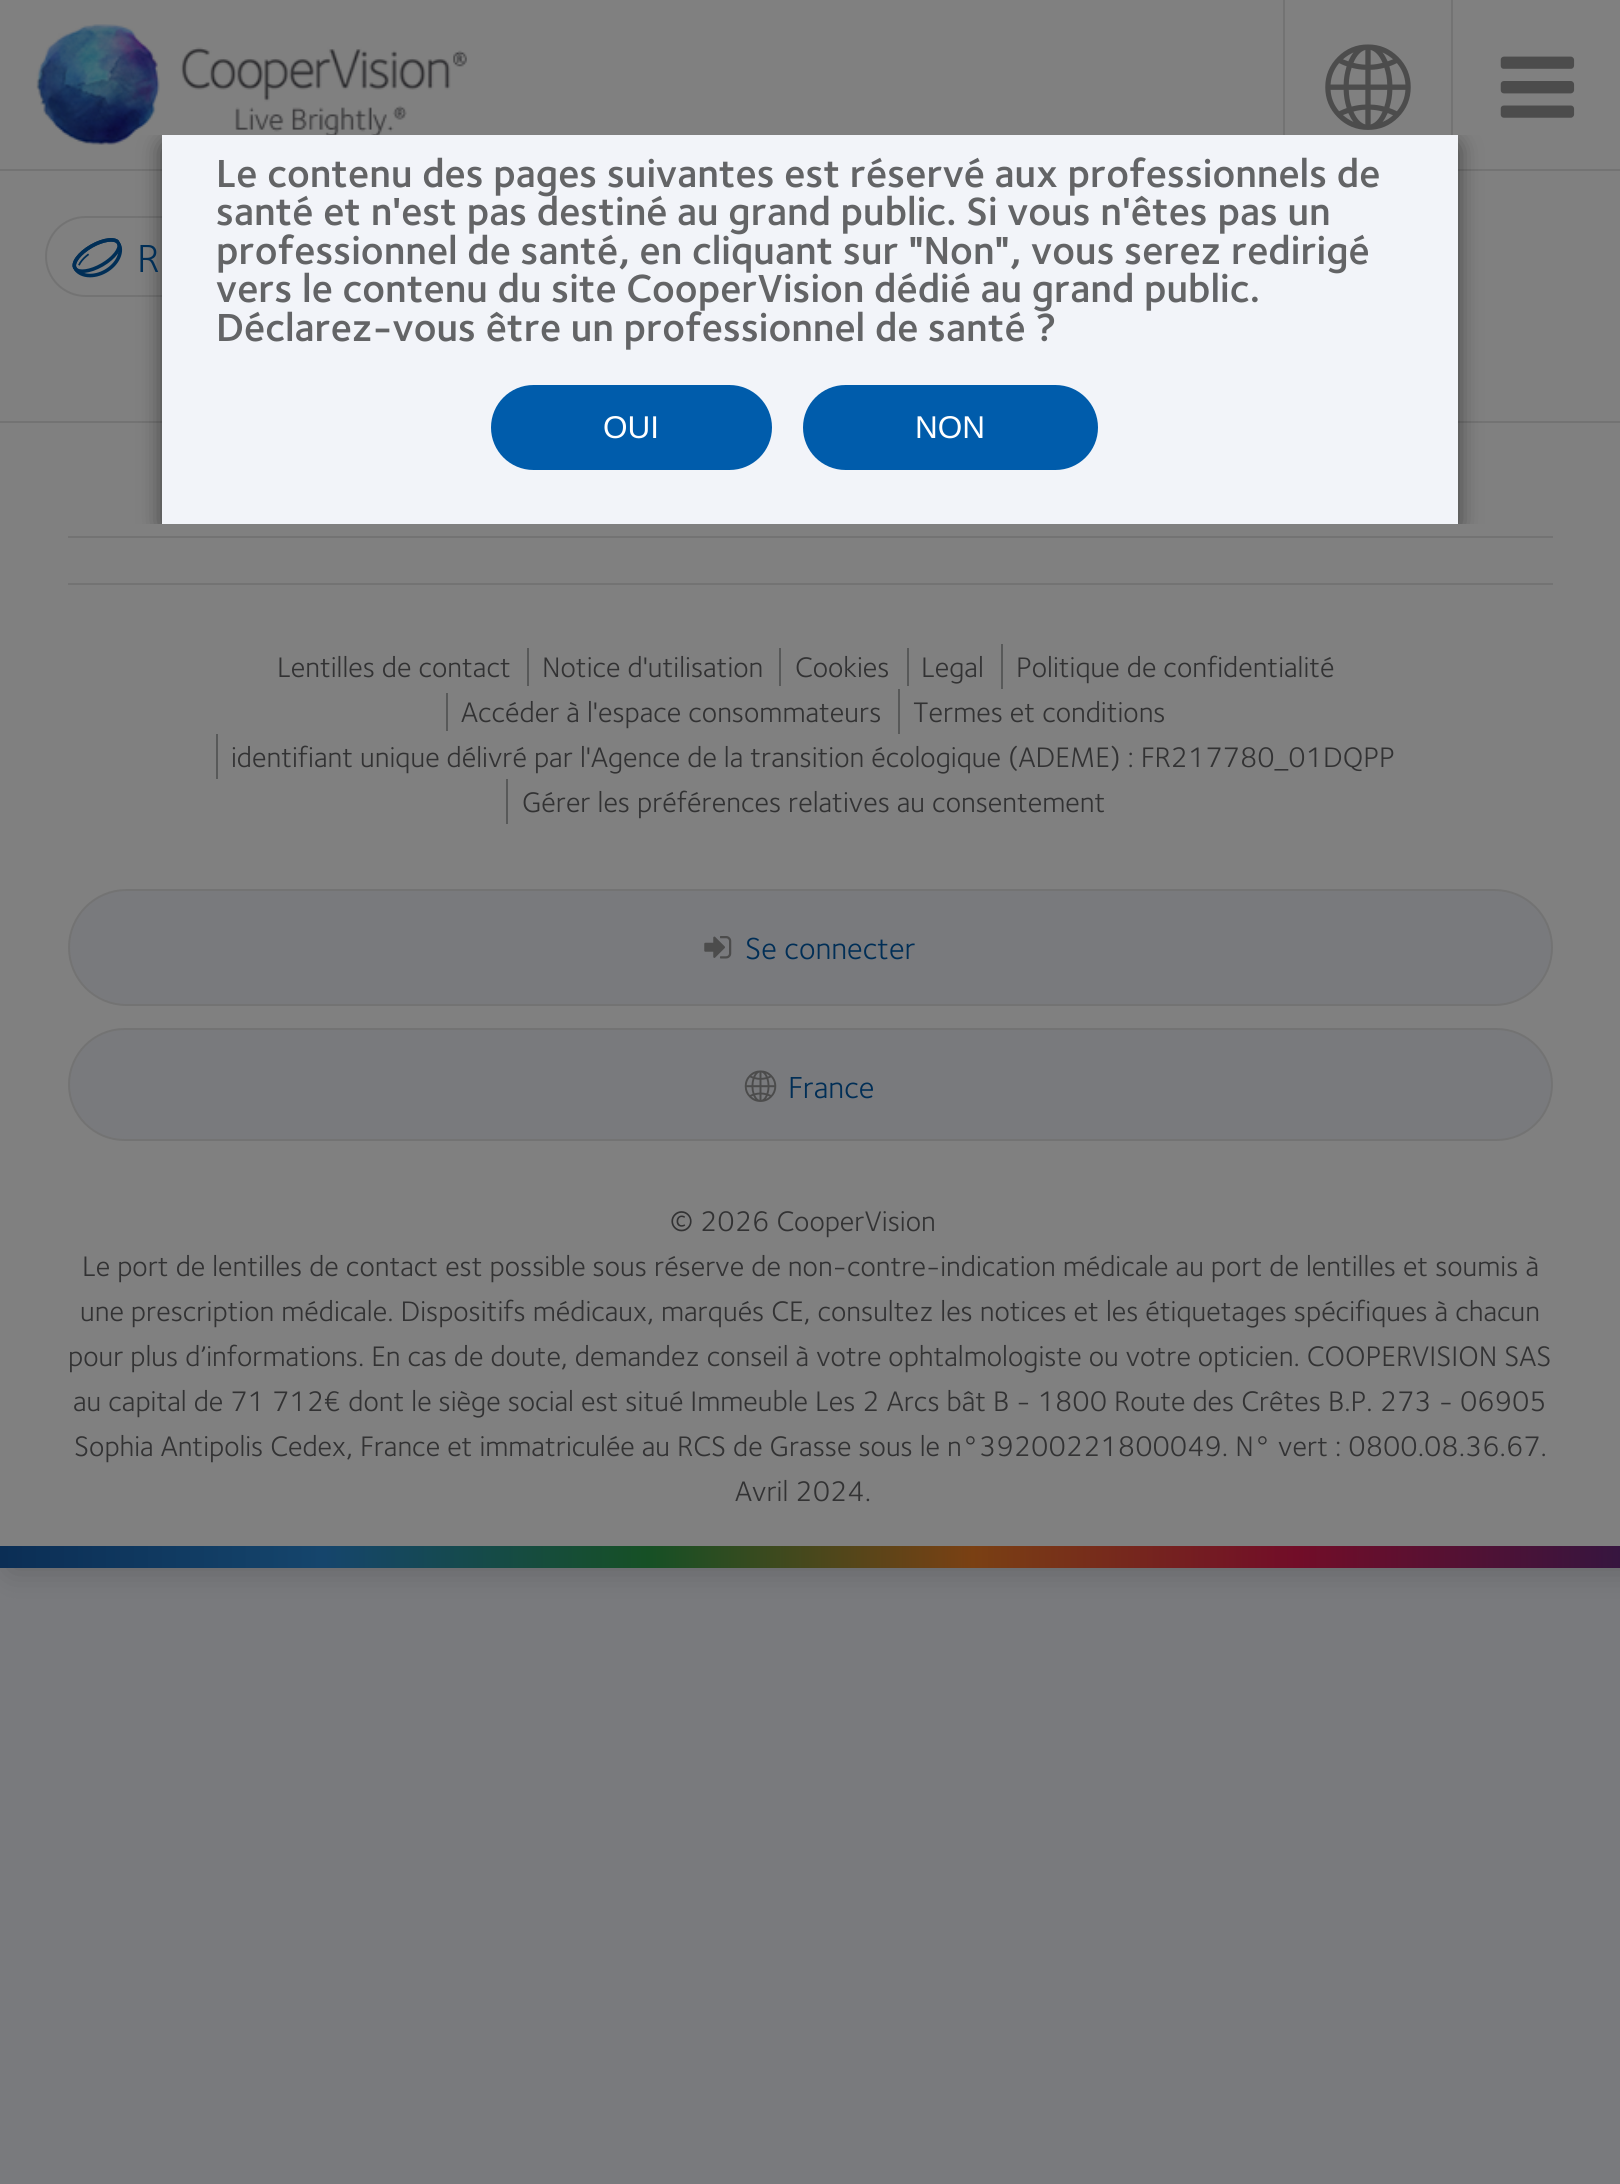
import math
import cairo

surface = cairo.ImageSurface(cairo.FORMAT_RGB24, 1620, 2184)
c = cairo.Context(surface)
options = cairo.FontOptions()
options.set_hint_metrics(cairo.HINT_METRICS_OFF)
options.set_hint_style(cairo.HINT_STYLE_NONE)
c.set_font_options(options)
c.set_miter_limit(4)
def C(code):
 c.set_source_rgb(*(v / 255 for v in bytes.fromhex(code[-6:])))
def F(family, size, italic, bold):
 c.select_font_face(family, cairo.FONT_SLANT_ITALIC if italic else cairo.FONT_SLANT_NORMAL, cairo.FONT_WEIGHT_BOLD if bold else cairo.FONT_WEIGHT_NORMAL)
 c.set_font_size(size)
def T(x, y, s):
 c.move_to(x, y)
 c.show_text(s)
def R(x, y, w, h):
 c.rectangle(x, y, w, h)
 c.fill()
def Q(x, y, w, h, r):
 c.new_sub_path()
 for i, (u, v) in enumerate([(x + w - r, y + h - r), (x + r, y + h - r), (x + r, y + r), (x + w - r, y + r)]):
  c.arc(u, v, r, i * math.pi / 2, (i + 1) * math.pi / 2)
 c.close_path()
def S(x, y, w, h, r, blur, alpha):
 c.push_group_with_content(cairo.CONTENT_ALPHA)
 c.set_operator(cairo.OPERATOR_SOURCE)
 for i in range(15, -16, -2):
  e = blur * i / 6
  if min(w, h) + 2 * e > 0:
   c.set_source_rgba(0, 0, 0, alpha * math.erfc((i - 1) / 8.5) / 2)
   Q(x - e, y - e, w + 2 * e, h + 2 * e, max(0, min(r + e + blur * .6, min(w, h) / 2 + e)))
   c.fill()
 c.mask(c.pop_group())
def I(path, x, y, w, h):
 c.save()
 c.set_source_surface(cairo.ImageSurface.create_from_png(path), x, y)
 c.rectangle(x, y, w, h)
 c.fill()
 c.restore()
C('797a7d')
c.paint()
C('000000')
S(11,0,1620,1568,0,17,.2)
C('808080')
R(0,0,1620,1546)
C('737373')
R(0,169,1620,2)
I('1.png',36,24,431,121)
R(1283,0,2,135)
I('2.png',1325,44,86,86)
R(1451,0,2,135)
Q(46,217,471,79,39.5)
c.stroke()
R(0,421,1620,2)
R(68,536,1485,2)
c.save()
c.rectangle(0,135,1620,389)
c.clip()
C('000000')
S(162,142,1296,389,7,11,.5)
c.restore()
C('f2f4f9')
R(162,135,1296,389)
F('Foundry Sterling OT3 SemiBold',40.5,0,0)
C('636466')
T(216,187,'Le contenu des pages suivantes est réservé aux professionnels de')
T(216,225,'santé et n\'est pas destiné au grand public. Si vous n\'êtes pas un')
T(216,264,'professionnel de santé, en cliquant sur "Non", vous serez redirigé')
T(216,302,'vers le contenu du site CooperVision dédié au grand public.')
T(216,341,'Déclarez-vous être un professionnel de santé ?')
C('005cab')
Q(491,385,281,85,42.5)
c.fill()
F('Liberation Sans',31.5,0,0)
C('ffffff')
T(603,438,'OUI')
C('005cab')
Q(803,385,295,85,42.5)
c.fill()
C('ffffff')
T(915,438,'NON')
I('3.png',1500,56,75,62)
I('4.png',72,238,51,40)
F('Foundry Sterling OT3',40.5,0,0)
C('002e56')
T(137,272,'R')
C('737373')
R(68,583,1485,2)
F('Foundry Sterling OT3',29.25,0,0)
C('323233')
T(277,677,'Lentilles de contact')
C('585959')
R(527,648,2,38)
C('323233')
T(542,677,'Notice d\'utilisation')
C('585959')
R(779,648,2,38)
C('323233')
T(795,677,'Cookies')
C('585959')
R(907,648,2,38)
C('323233')
T(921,677,'Legal')
C('585959')
R(1001,644,2,45)
C('323233')
T(1016,677,'Politique de confidentialité')
C('585959')
R(446,693,2,38)
C('323233')
T(461,722,'Accéder à l\'espace consommateurs')
C('585959')
R(898,689,2,45)
C('323233')
T(913,722,'Termes et conditions')
C('585959')
R(216,734,2,45)
C('323233')
T(231,767,'identifiant unique délivré par l\'Agence de la transition écologique (ADEME) : FR217780_01DQPP')
C('585959')
R(506,779,2,45)
C('323233')
T(522,812,'Gérer les préférences relatives au consentement')
C('797a7d')
Q(69,890,1483,115,57.5)
c.fill_preserve()
C('737373')
c.stroke()
I('5.png',704,936,28,23)
F('Foundry Sterling OT3',31.5,0,0)
C('002e56')
T(745,959,'Se connecter')
C('797a7d')
Q(69,1029,1483,111,55.5)
c.fill_preserve()
C('737373')
c.stroke()
I('6.png',744,1070,33,32)
C('002e56')
T(788,1098,'France')
F('Foundry Sterling OT3',29.25,0,0)
C('323233')
T(670,1231,'© 2026 CooperVision')
T(82,1276,'Le port de lentilles de contact est possible sous réserve de non-contre-indication médicale au port de lentilles et soumis à')
T(80,1321,'une prescription médicale. Dispositifs médicaux, marqués CE, consultez les notices et les étiquetages spécifiques à chacun')
T(68,1366,'pour plus d’informations. En cas de doute, demandez conseil à votre ophtalmologiste ou votre opticien. COOPERVISION SAS')
T(73,1411,'au capital de 71 712€ dont le siège social est situé Immeuble Les 2 Arcs bât B - 1800 Route des Crêtes B.P. 273 - 06905')
T(74,1456,'Sophia Antipolis Cedex, France et immatriculée au RCS de Grasse sous le n°39200221800049. N° vert : 0800.08.36.67.')
T(735,1501,'Avril 2024.')
gradient = cairo.LinearGradient(0,1557,1620,1557)
gradient.add_color_stop_rgba(0,0.043,0.18,0.333,1)
gradient.add_color_stop_rgba(.2,0.082,0.271,0.424,1)
gradient.add_color_stop_rgba(.4,0.086,0.314,0.145,1)
gradient.add_color_stop_rgba(.6,0.478,0.251,0.075,1)
gradient.add_color_stop_rgba(.8,0.447,0.051,0.157,1)
gradient.add_color_stop_rgba(1,0.212,0.082,0.247,1)
c.set_source(gradient)
R(0,1546,1620,22)
surface.write_to_png('o.png')
